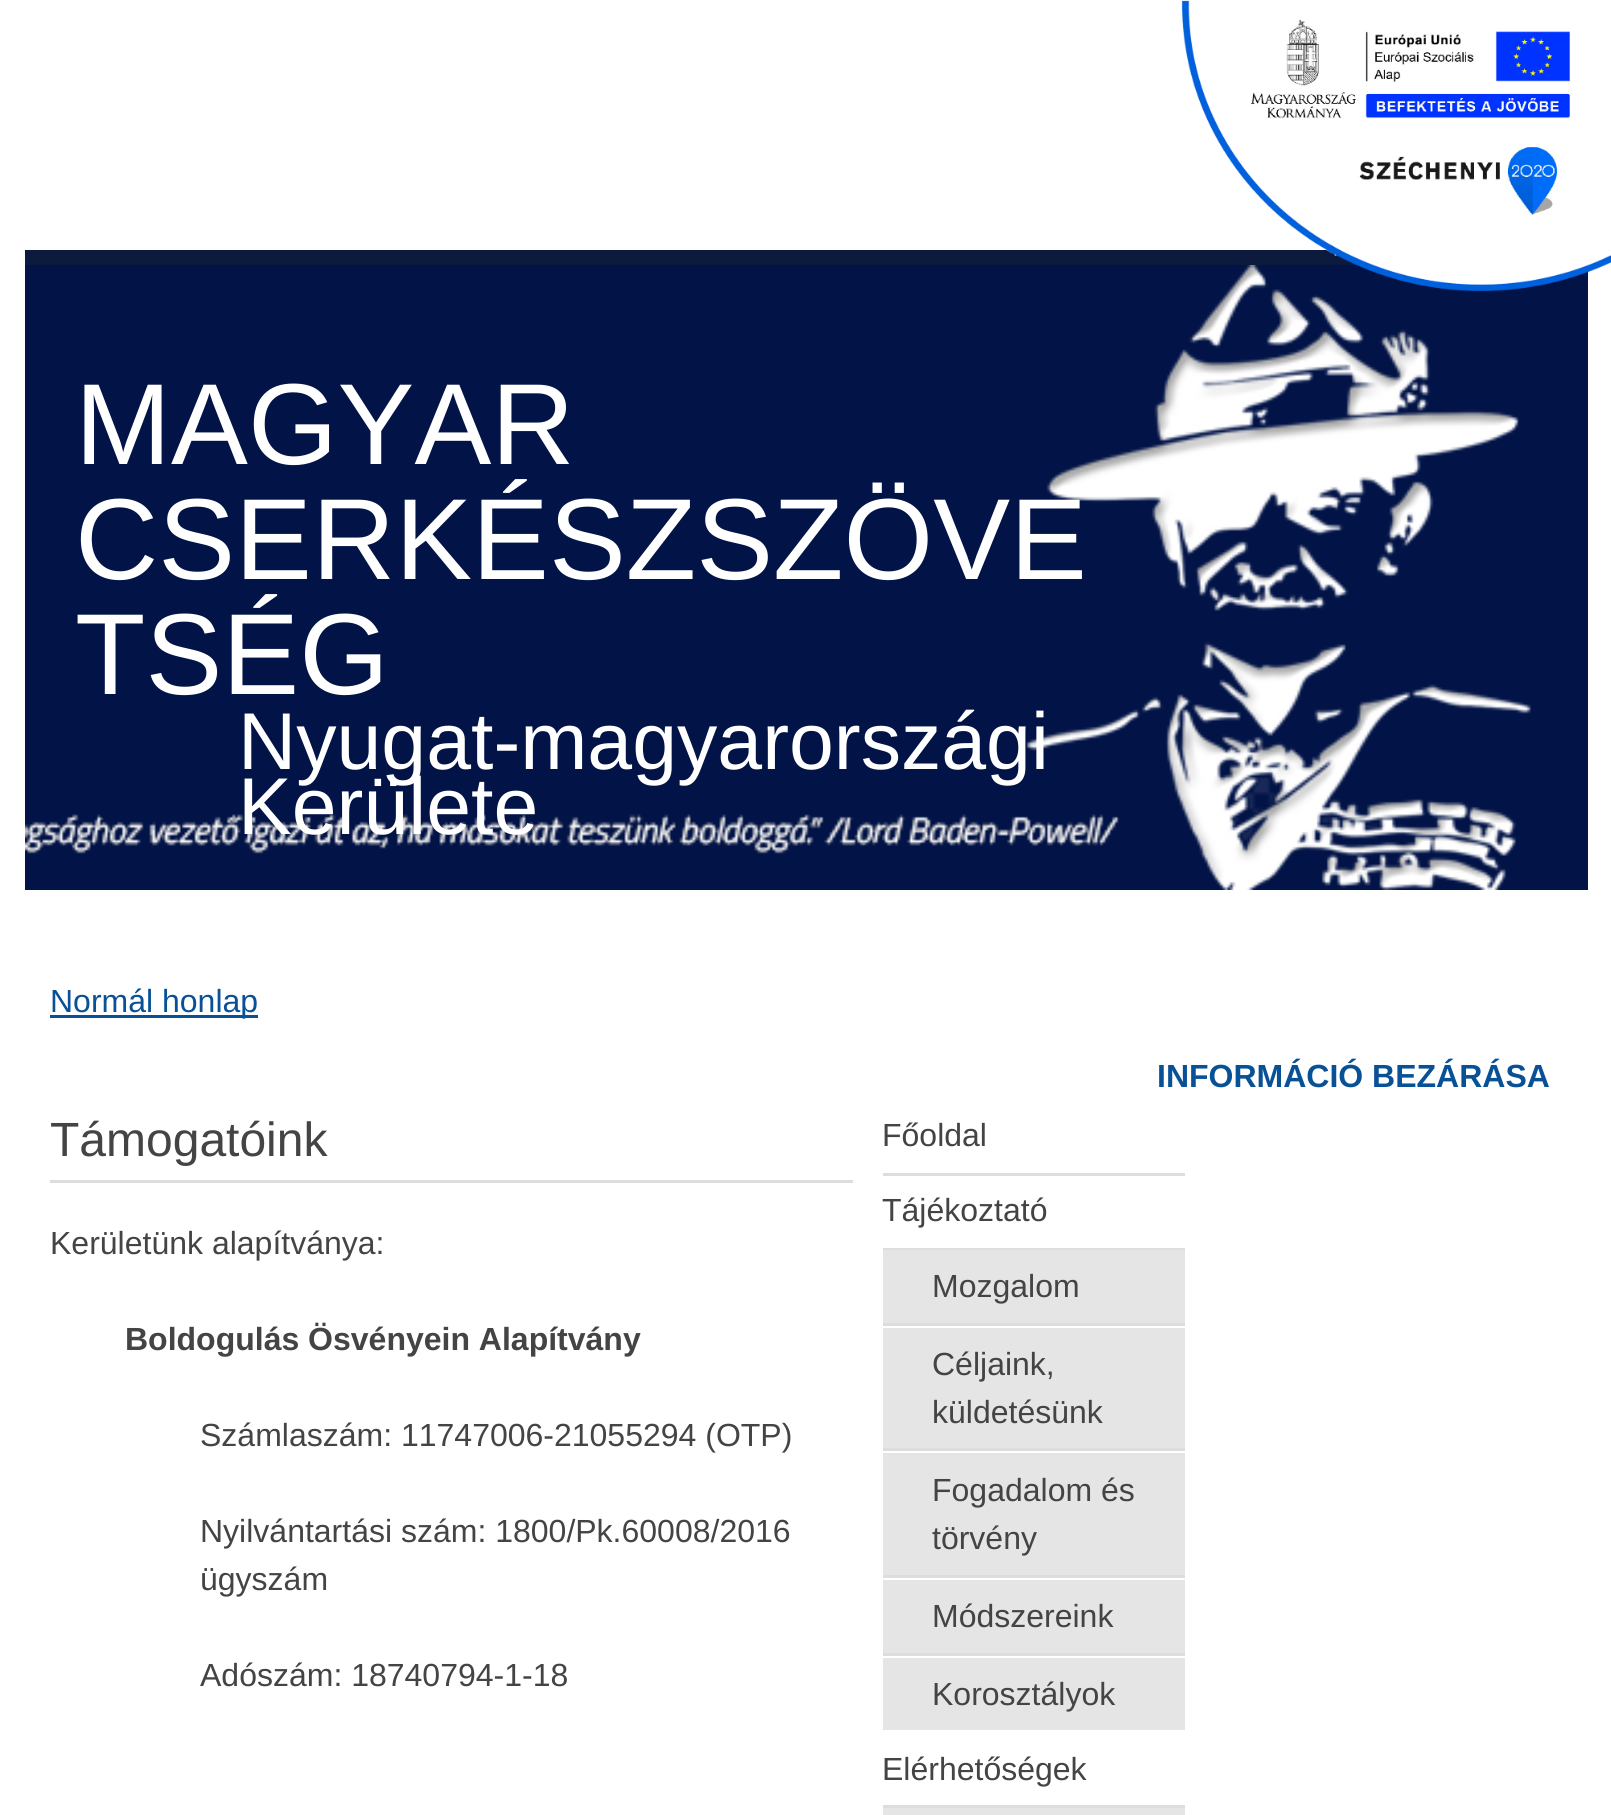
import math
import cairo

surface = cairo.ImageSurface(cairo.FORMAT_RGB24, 1611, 1815)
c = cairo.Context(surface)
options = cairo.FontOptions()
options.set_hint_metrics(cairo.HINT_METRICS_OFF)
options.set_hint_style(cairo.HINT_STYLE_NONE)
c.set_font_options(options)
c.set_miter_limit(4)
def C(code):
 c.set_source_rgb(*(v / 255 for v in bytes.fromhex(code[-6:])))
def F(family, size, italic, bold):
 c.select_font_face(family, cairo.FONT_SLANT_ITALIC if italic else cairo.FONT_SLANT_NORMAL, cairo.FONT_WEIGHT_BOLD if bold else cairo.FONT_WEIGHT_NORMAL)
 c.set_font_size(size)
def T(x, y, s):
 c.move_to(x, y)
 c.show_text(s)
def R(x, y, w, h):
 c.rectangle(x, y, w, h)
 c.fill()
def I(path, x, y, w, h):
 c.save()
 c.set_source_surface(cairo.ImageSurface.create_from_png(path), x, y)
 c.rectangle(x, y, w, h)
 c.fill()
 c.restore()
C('ffffff')
c.paint()
C('0c1a3e')
R(25,250,1563,640)
I('1.png',25,265,1563,625)
F('Liberation Sans',115.25,0,0)
C('ffffff')
T(75,464,'MAGYAR')
T(75,579,'CSERKÉSZSZÖVE')
T(75,694,'TSÉG')
F('Liberation Sans',80.6,0,0)
T(238,769,'Nyugat-magyarországi')
T(238,834,'Kerülete')
C('095197')
R(50,1015,208,3)
F('Liberation Sans',32,0,0)
T(50,1012,'Normál honlap')
F('Liberation Sans',32,0,1)
T(1157,1087,'INFORMÁCIÓ BEZÁRÁSA')
C('dddddd')
R(50,1180,803,3)
F('Liberation Sans',48,0,0)
C('444444')
T(50,1156,'Támogatóink')
F('Liberation Sans',32,0,0)
T(50,1254,'Kerületünk alapítványa:')
F('Liberation Sans',32,0,1)
T(125,1350,'Boldogulás Ösvényein Alapítvány')
F('Liberation Sans',32,0,0)
T(200,1446,'Számlaszám: 11747006-21055294 (OTP)')
T(200,1542,'Nyilvántartási szám: 1800/Pk.60008/2016')
T(200,1590,'ügyszám')
T(200,1686,'Adószám: 18740794-1-18')
I('2.png',1181,0,430,292)
C('dddddd')
R(883,1173,302,3)
C('444444')
T(882,1146,'Főoldal')
C('dddddd')
R(883,1248,302,2)
C('444444')
T(882,1221,'Tájékoztató')
C('e5e5e5')
R(883,1250,302,73)
C('dddddd')
R(883,1323,302,3)
C('444444')
T(932,1297,'Mozgalom')
C('e5e5e5')
R(883,1328,302,120)
C('dddddd')
R(883,1448,302,3)
C('444444')
T(932,1375,'Céljaink,')
T(932,1423,'küldetésünk')
C('e5e5e5')
R(883,1453,302,122)
C('dddddd')
R(883,1575,302,3)
C('444444')
T(932,1501,'Fogadalom és')
T(932,1549,'törvény')
C('e5e5e5')
R(883,1580,302,73)
C('dddddd')
R(883,1653,302,3)
C('444444')
T(932,1627,'Módszereink')
C('e5e5e5')
R(883,1658,302,72)
C('444444')
T(932,1705,'Korosztályok')
C('dddddd')
R(883,1805,302,3)
C('444444')
T(882,1780,'Elérhetőségek')
C('e5e5e5')
R(883,1808,302,7)
surface.write_to_png('o.png')
